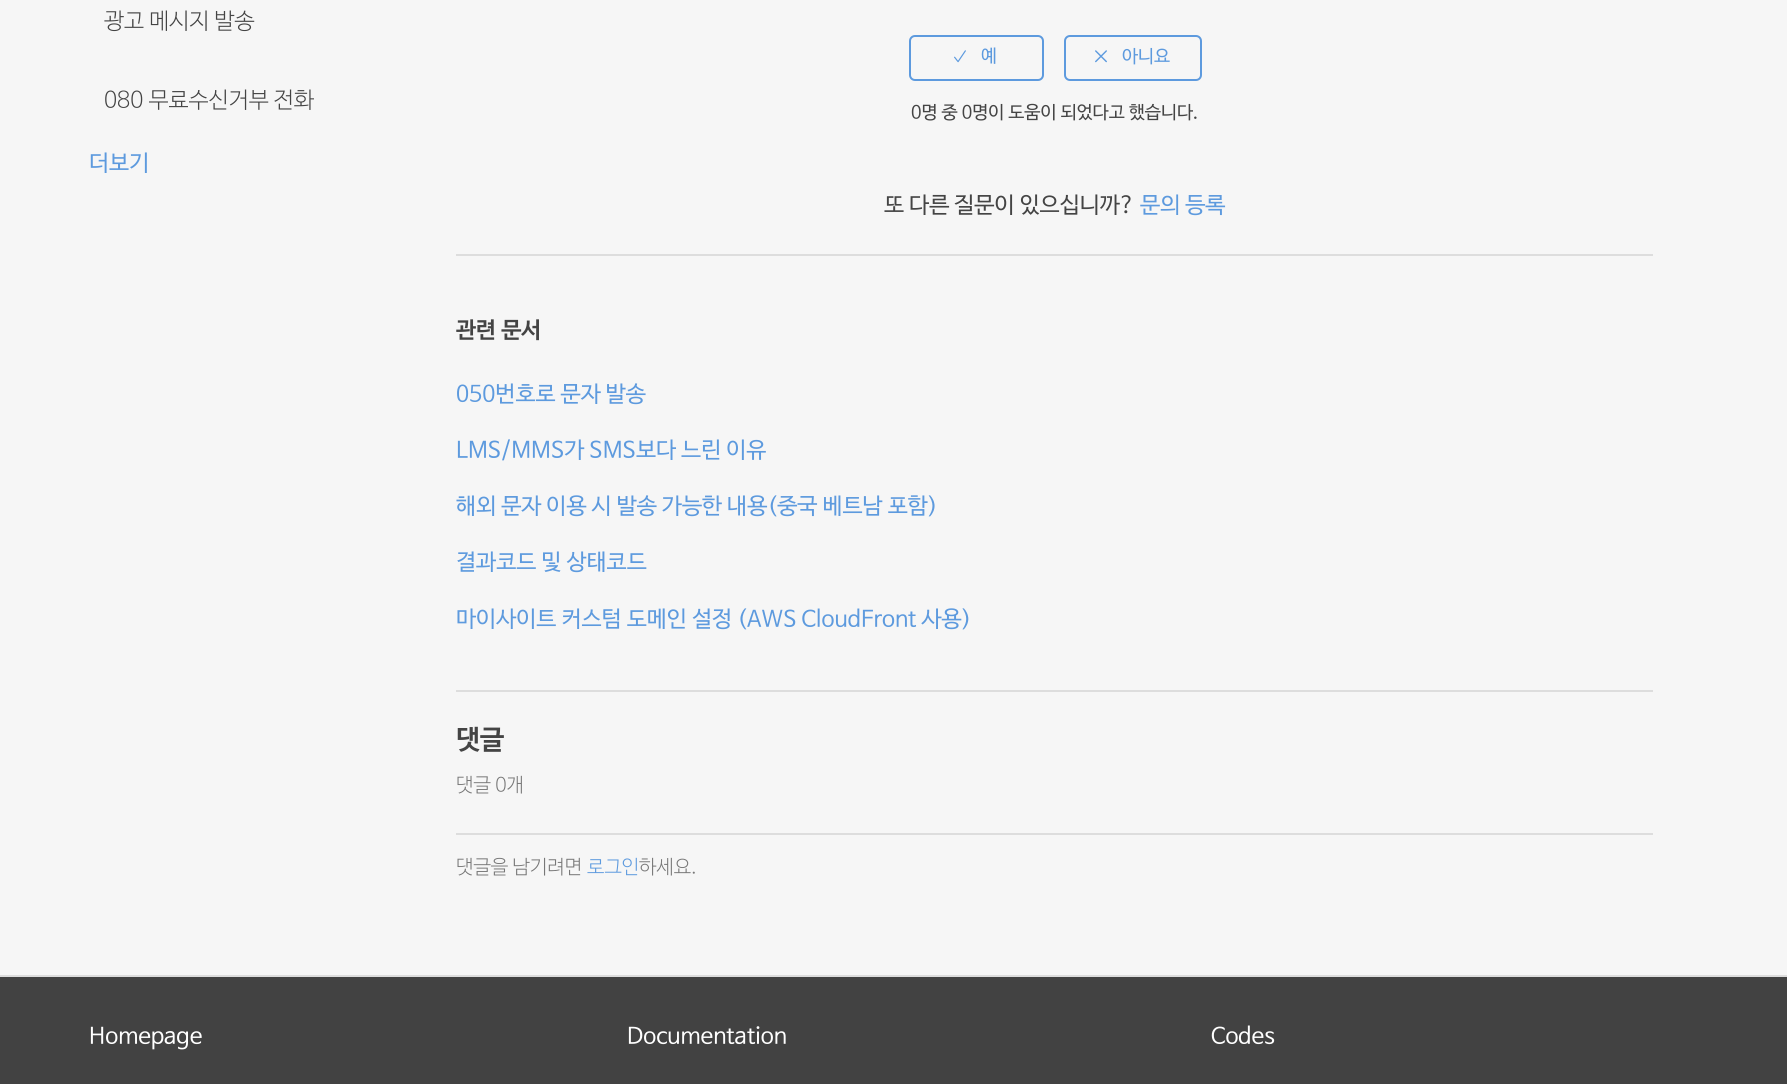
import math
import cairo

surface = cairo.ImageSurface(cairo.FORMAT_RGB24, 1787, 1084)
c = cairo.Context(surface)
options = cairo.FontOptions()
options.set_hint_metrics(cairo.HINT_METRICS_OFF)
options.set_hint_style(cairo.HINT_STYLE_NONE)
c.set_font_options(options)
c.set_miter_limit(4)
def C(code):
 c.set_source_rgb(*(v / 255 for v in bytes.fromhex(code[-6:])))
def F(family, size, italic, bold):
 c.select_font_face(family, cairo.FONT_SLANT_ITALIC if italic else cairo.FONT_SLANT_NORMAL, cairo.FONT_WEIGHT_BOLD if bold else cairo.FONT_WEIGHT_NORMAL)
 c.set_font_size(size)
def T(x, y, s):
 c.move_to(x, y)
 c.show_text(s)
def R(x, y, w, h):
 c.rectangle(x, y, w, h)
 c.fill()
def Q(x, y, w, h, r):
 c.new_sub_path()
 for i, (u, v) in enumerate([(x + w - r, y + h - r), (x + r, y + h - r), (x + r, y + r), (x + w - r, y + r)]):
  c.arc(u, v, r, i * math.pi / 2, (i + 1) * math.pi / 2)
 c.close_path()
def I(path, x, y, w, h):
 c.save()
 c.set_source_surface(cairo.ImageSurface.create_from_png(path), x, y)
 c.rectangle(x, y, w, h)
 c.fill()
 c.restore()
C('f6f6f6')
c.paint()
F('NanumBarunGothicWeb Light',22.5,0,0)
C('444444')
T(104,28,'광고 메시지 발송')
T(104,107,'080 무료수신거부 전화')
F('NanumBarunGothicWeb',22.5,0,0)
C('5d9ade')
T(89,170,'더보기')
Q(910,36,133,44,5)
c.stroke()
I('1.png',954,50,12,13)
I('2.png',981,47,15,17)
Q(1065,36,136,44,5)
c.stroke()
I('3.png',1095,50,12,13)
F('NanumBarunGothicWeb',18,0,0)
T(1122,62,'아니요')
C('444444')
T(911,118,'0명 중 0명이 도움이 되었다고 했습니다.')
F('NanumBarunGothicWeb',22.5,0,0)
T(884,212,'또 다른 질문이 있으십니까?')
C('5d9ade')
T(1140,212,'문의 등록')
C('dddddd')
R(456,254,1197,2)
F('NanumBarunGothicWeb',22.5,0,1)
C('444444')
T(456,337,'관련 문서')
F('NanumBarunGothicWeb',22.5,0,0)
C('5d9ade')
T(456,401,'050번호로 문자 발송')
T(456,457,'LMS/MMS가 SMS보다 느린 이유')
T(456,513,'해외 문자 이용 시 발송 가능한 내용(중국 베트남 포함)')
T(456,569,'결과코드 및 상태코드')
T(456,626,'마이사이트 커스텀 도메인 설정 (AWS CloudFront 사용)')
C('dddddd')
R(456,690,1197,2)
R(456,833,1197,2)
F('NanumBarunGothicWeb',27,0,1)
C('444444')
T(456,748,'댓글')
F('NanumBarunGothicWeb Light',19.5,0,0)
C('777777')
T(456,791,'댓글 0개')
T(456,873,'댓글을 남기려면')
C('5d9ade')
T(587,873,'로그인')
C('777777')
T(639,873,'하세요.')
C('424242')
R(0,977,1787,107)
C('dddddd')
R(0,975,1787,2)
F('NanumBarunGothicWeb',22.5,0,0)
C('ffffff')
T(89,1043,'Homepage')
T(627,1043,'Documentation')
T(1211,1043,'Codes')
surface.write_to_png('o.png')
